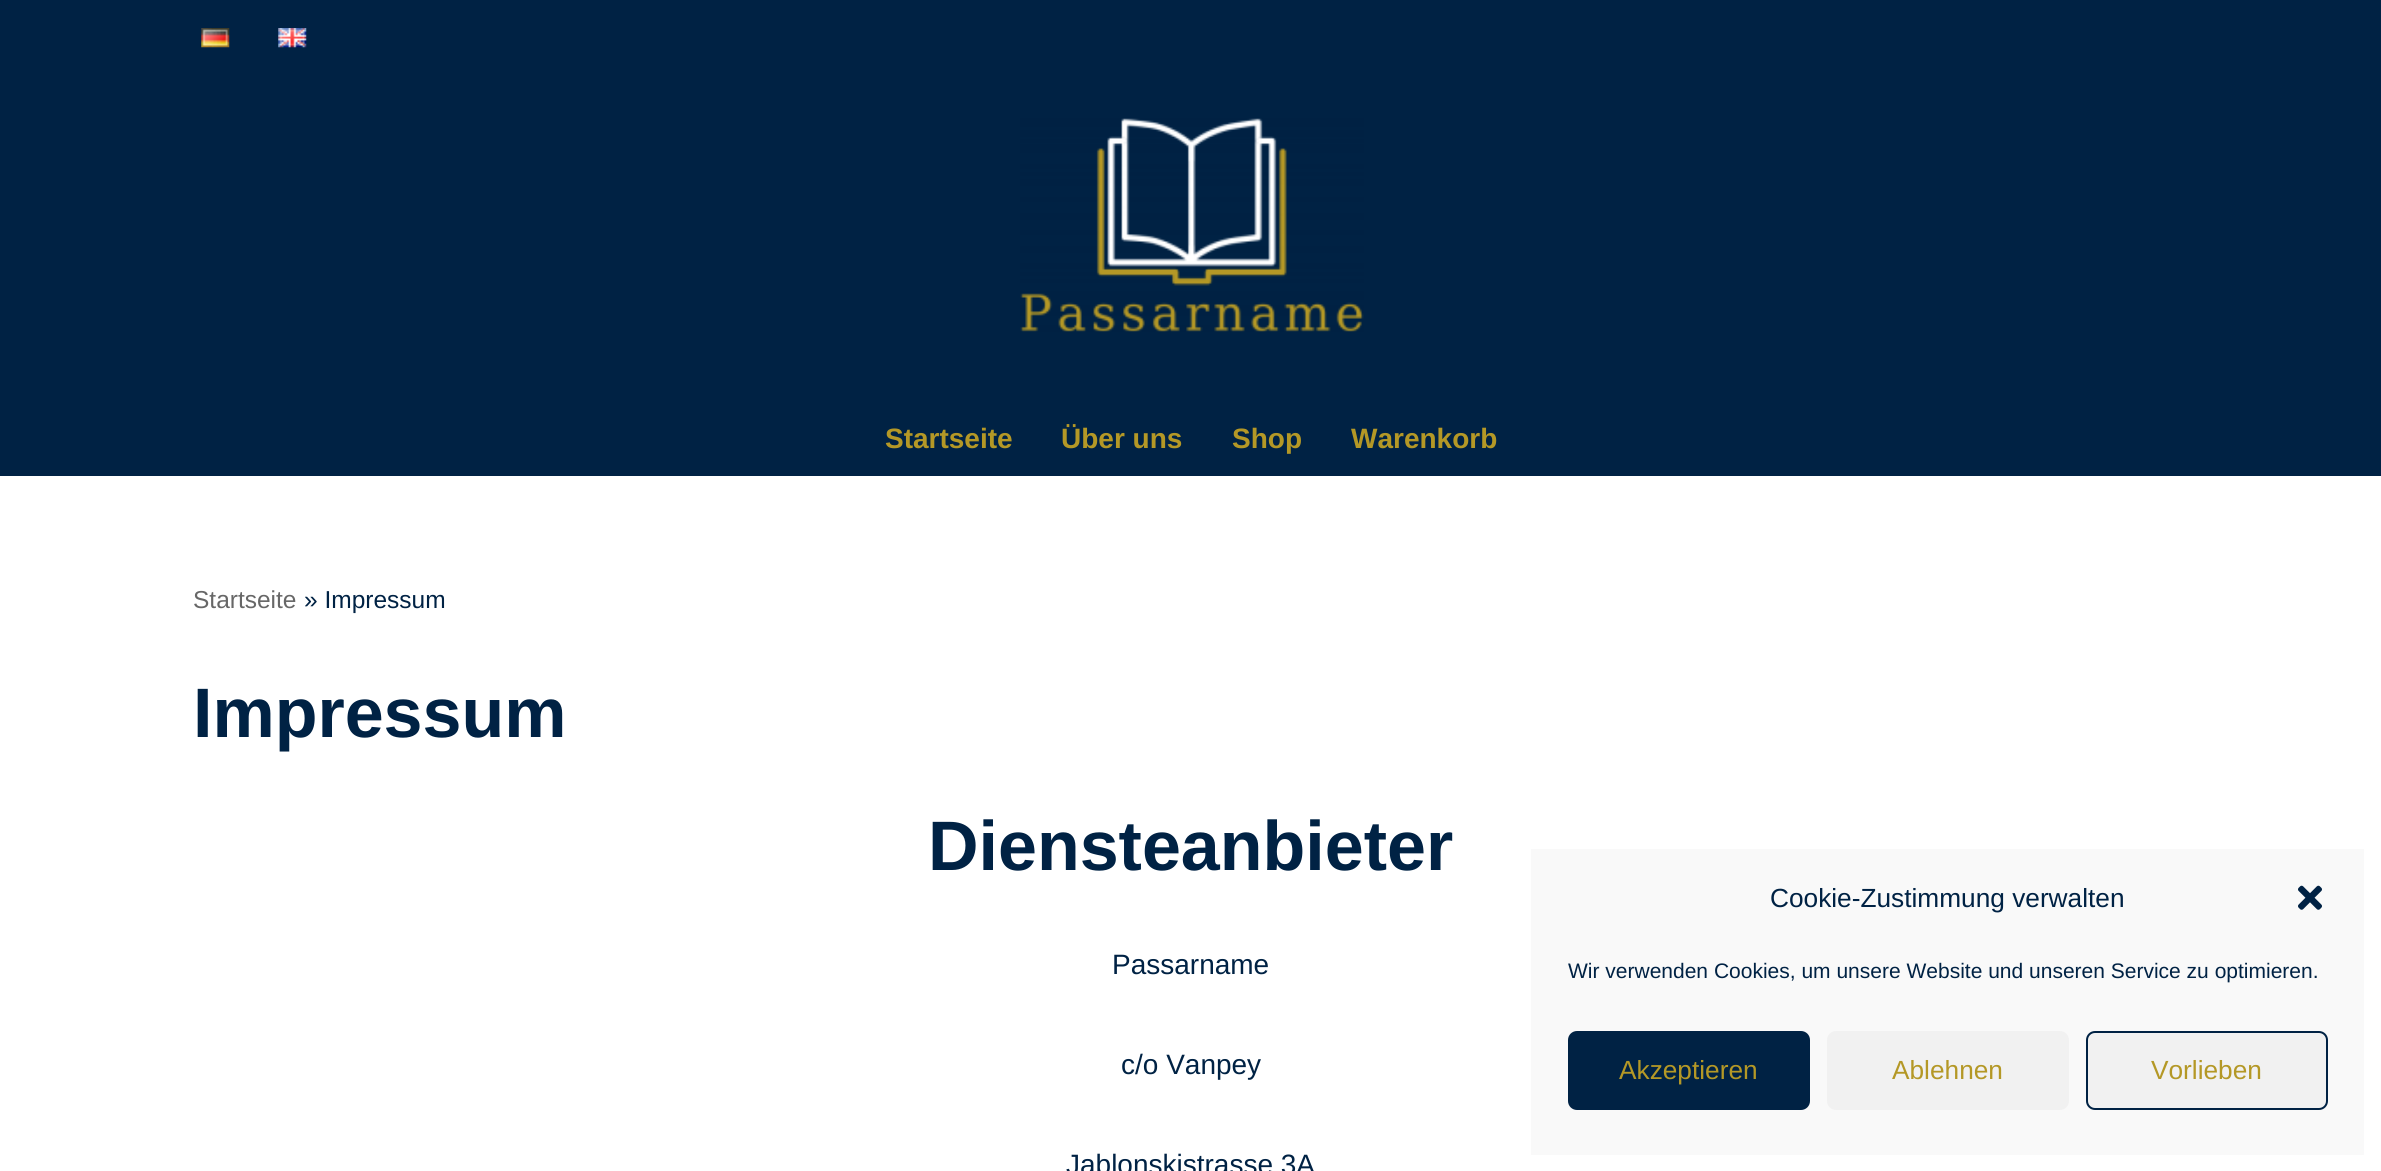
import math
import cairo

surface = cairo.ImageSurface(cairo.FORMAT_RGB24, 2381, 1171)
c = cairo.Context(surface)
options = cairo.FontOptions()
options.set_hint_metrics(cairo.HINT_METRICS_OFF)
options.set_hint_style(cairo.HINT_STYLE_NONE)
c.set_font_options(options)
c.set_miter_limit(4)
def C(code):
 c.set_source_rgb(*(v / 255 for v in bytes.fromhex(code[-6:])))
def F(family, size, italic, bold):
 c.select_font_face(family, cairo.FONT_SLANT_ITALIC if italic else cairo.FONT_SLANT_NORMAL, cairo.FONT_WEIGHT_BOLD if bold else cairo.FONT_WEIGHT_NORMAL)
 c.set_font_size(size)
def T(x, y, s):
 c.move_to(x, y)
 c.show_text(s)
def R(x, y, w, h):
 c.rectangle(x, y, w, h)
 c.fill()
def Q(x, y, w, h, r):
 c.new_sub_path()
 for i, (u, v) in enumerate([(x + w - r, y + h - r), (x + r, y + h - r), (x + r, y + r), (x + w - r, y + r)]):
  c.arc(u, v, r, i * math.pi / 2, (i + 1) * math.pi / 2)
 c.close_path()
def I(path, x, y, w, h):
 c.save()
 c.set_source_surface(cairo.ImageSurface.create_from_png(path), x, y)
 c.rectangle(x, y, w, h)
 c.fill()
 c.restore()
C('ffffff')
c.paint()
C('002244')
R(0,0,2381,476)
I('1.png',201,28,29,20)
I('2.png',278,28,29,20)
I('3.png',1020,118,344,214)
F('Liberation Sans',28,0,1)
C('b49826')
T(885,448,'Startseite')
T(1061,448,'Über uns')
T(1232,448,'Shop')
T(1351,448,'Warenkorb')
F('Liberation Sans',24.5,0,0)
C('676767')
T(193,608,'Startseite')
C('002244')
T(304,608,'» Impressum')
F('Liberation Sans',70,0,1)
T(193,737,'Impressum')
T(928,870,'Diensteanbieter')
F('Liberation Sans',28,0,0)
T(1112,974,'Passarname')
T(1121,1074,'c/o Vanpey')
T(1066,1174,'Jablonskistrasse 3A')
C('f9f9f9')
R(1531,849,833,306)
F('Liberation Sans',26.25,0,0)
C('002244')
T(1770,907,'Cookie-Zustimmung verwalten')
I('4.png',2298,885,24,25)
F('Liberation Sans',21,0,0)
T(1568,978,'Wir verwenden Cookies, um unsere Website und unseren Service zu optimieren.')
Q(1569,1032,240,77,8)
c.fill_preserve()
c.stroke()
F('Liberation Sans',26.25,0,0)
C('b49826')
T(1619,1079,'Akzeptieren')
C('f1f1f1')
Q(1827,1031,242,79,9)
c.fill()
C('b49826')
T(1892,1079,'Ablehnen')
C('f1f1f1')
Q(2087,1032,240,77,8)
c.fill_preserve()
C('002244')
c.stroke()
C('b49826')
T(2151,1079,'Vorlieben')
surface.write_to_png('o.png')
